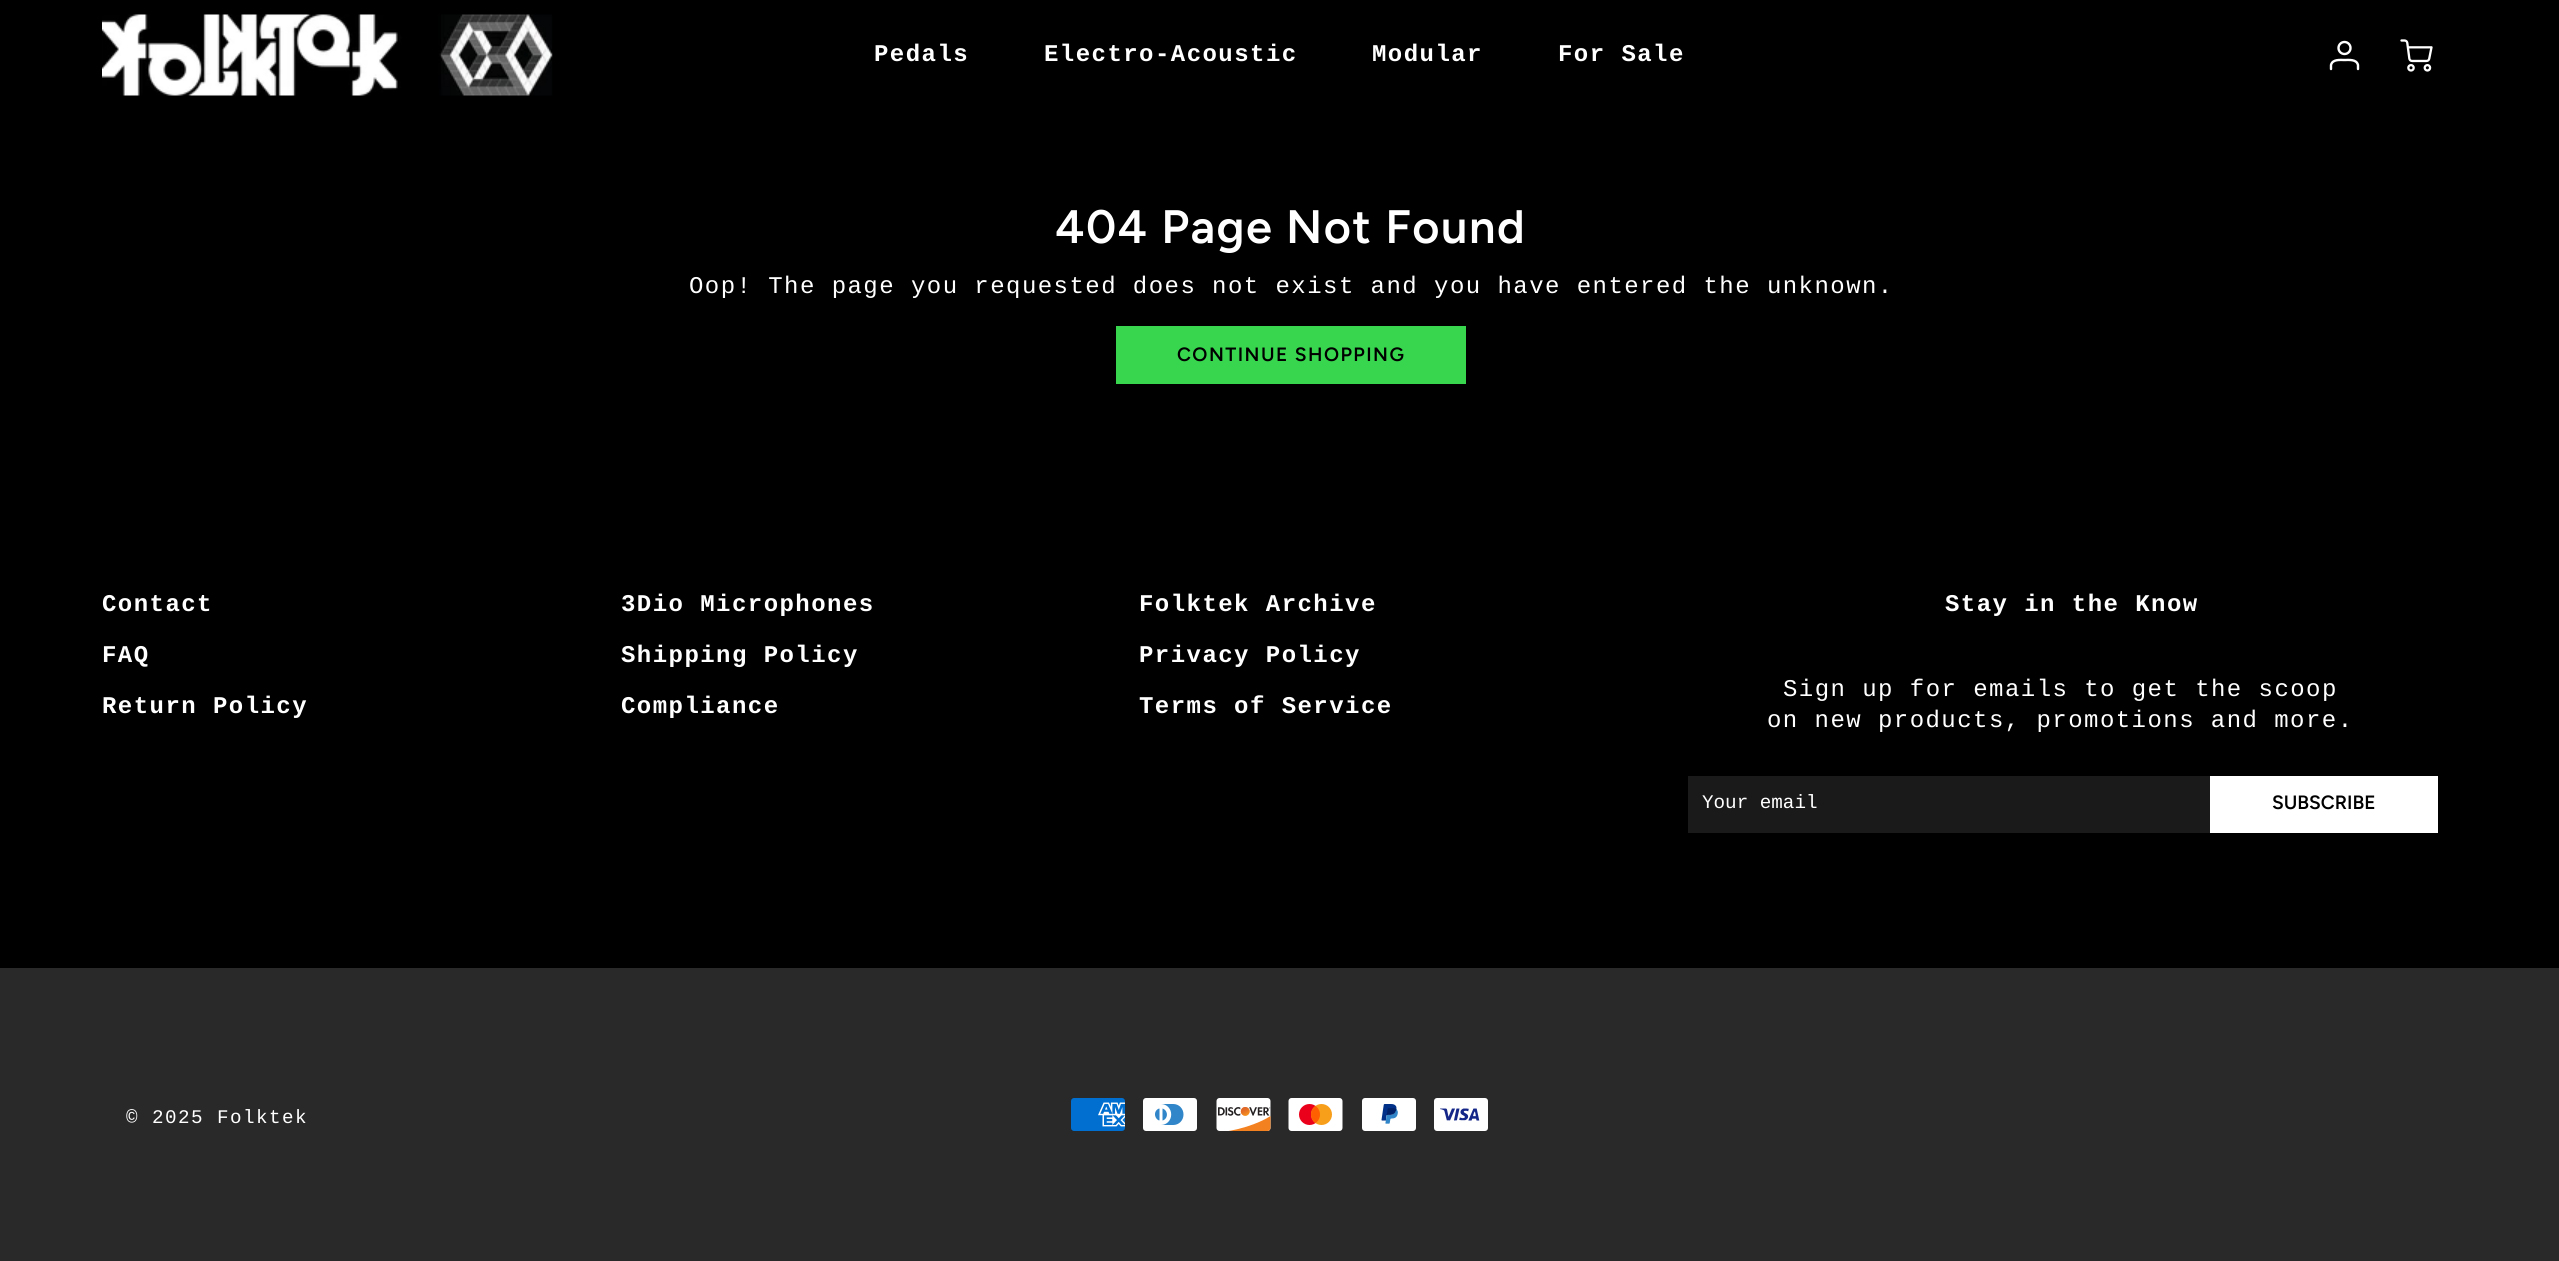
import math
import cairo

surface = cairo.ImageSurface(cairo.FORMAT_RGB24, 2559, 1261)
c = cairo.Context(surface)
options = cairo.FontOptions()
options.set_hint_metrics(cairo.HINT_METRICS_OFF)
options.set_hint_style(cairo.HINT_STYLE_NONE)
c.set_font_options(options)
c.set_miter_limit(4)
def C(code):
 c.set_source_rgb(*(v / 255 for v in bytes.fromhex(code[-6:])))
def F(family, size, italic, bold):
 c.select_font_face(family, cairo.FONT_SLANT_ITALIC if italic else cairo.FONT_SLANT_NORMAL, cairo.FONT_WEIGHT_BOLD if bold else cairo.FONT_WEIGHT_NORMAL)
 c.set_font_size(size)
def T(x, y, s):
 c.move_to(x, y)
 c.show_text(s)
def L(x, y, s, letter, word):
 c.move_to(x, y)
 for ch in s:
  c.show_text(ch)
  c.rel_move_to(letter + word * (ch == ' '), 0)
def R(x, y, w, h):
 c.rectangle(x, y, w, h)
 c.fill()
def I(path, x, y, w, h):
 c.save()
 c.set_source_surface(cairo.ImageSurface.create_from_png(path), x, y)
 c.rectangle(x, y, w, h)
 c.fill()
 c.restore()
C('000000')
c.paint()
I('1.png',102,14,451,82)
F('Liberation Mono',24,0,1)
C('ffffff')
L(874,61,'Pedals',1.45,0)
L(1044,61,'Electro-Acoustic',1.45,0)
L(1372,61,'Modular',1.45,0)
L(1558,61,'For Sale',1.45,0)
c.new_path()
c.arc(2344.5,48,6,0,2 * math.pi)
c.set_line_width(2.4)
c.stroke()
c.new_path()
c.move_to(2358,69)
c.line_to(2358,65)
c.curve_to(2356.5,59,2349,60,2344.5,60)
c.curve_to(2340,60,2332.5,59,2331,65)
c.line_to(2331,69)
c.set_line_cap(cairo.LINE_CAP_ROUND)
c.set_line_join(cairo.LINE_JOIN_ROUND)
c.stroke()
I('2.png',2400,39,33,33)
F('Figtree SemiBold',46.9,0,0)
L(1055,243,'404 Page Not Found',1.45,0)
F('Liberation Mono',24,0,0)
L(689,293,'Oop! The page you requested does not exist and you have entered the unknown.',1.45,0)
C('37d64e')
R(1116,326,350,58)
F('Figtree SemiBold',19.25,0,0)
C('000000')
L(1177,361,'CONTINUE SHOPPING',1.45,0)
F('Liberation Mono',24,0,1)
C('ffffff')
L(102,611,'Contact',1.45,0)
L(621,611,'3Dio Microphones',1.45,0)
L(1139,611,'Folktek Archive',1.45,0)
L(102,662,'FAQ',1.45,0)
L(621,662,'Shipping Policy',1.45,0)
L(1139,662,'Privacy Policy',1.45,0)
L(102,713,'Return Policy',1.45,0)
L(621,713,'Compliance',1.45,0)
L(1139,713,'Terms of Service',1.45,0)
L(1945,611,'Stay in the Know',1.45,0)
F('Liberation Mono',24,0,0)
L(1783,696,'Sign up for emails to get the scoop',1.45,0)
L(1767,727,'on new products, promotions and more.',1.45,0)
C('1a1a1a')
R(1688,776,522,57)
F('Liberation Mono',19.25,0,0)
C('ffffff')
T(1702,808,'Your email')
R(2210,776,228,57)
F('Figtree SemiBold',19.25,0,0)
C('000000')
T(2272,809,'SUBSCRIBE')
C('292929')
R(0,968,2559,293)
F('Liberation Mono',19.25,0,0)
C('ffffff')
L(126,1123,'© 2025 Folktek',1.45,0)
I('3.png',1071,1098,54,33)
I('4.png',1143,1098,54,33)
I('5.png',1216,1098,55,33)
I('6.png',1288,1098,55,33)
I('7.png',1362,1098,54,33)
I('8.png',1434,1098,54,33)
surface.write_to_png('o.png')
